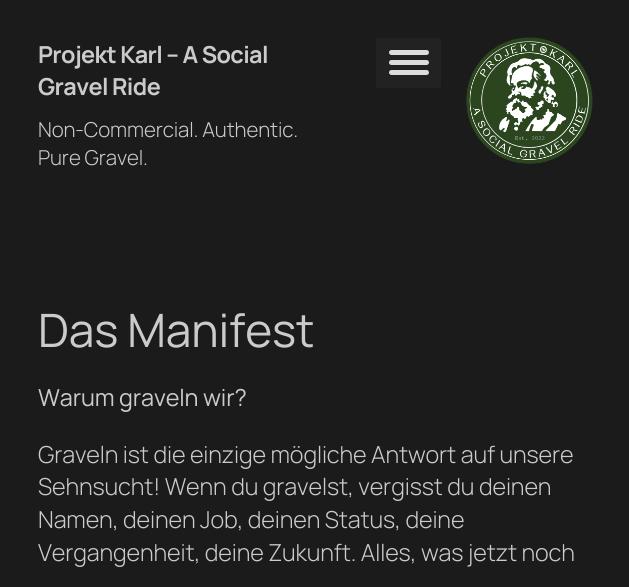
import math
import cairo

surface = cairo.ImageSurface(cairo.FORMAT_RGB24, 629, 587)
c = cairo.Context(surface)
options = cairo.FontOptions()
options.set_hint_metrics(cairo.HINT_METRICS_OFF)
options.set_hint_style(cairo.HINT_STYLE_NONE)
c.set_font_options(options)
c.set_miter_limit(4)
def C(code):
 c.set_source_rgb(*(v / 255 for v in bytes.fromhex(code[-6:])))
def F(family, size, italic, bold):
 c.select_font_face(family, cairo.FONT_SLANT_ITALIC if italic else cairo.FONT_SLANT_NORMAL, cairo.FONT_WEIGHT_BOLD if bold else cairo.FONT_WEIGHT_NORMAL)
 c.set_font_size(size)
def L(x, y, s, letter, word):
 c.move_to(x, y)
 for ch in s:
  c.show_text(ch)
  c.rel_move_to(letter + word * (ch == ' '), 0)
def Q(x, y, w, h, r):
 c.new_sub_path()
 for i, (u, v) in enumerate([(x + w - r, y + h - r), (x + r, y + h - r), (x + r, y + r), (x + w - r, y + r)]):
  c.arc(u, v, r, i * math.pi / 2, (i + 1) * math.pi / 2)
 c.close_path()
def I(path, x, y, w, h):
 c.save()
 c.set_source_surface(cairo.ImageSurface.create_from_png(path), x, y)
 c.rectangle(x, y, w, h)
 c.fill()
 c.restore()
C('1b1b1b')
c.paint()
F('Manrope',23.4,0,1)
C('cbcbcb')
L(38,63,'Projekt Karl – A Social',-.6,0)
L(38,95,'Gravel Ride',-.6,0)
F('Manrope Light',20.5,0,0)
L(38,137,'Non-Commercial. Authentic.',-.12,0)
L(38,165,'Pure Gravel.',-.12,0)
C('222222')
Q(376,38,65,50,2.5)
c.fill()
C('dddddd')
Q(389,50,40,5,2.5)
c.fill()
Q(389,60,40,5,2.5)
c.fill()
Q(389,70,40,5,2.5)
c.fill()
I('1.png',466,37,127,127)
F('Manrope',46,0,0)
C('cbcbcb')
L(38,347,'Das Manifest',-.12,0)
F('Manrope',23.4,0,0)
L(38,406,'Warum graveln wir?',-.12,0)
F('Manrope Light',23.4,0,0)
L(38,463,'Graveln ist die einzige mögliche Antwort auf unsere',-.12,0)
L(38,495,'Sehnsucht! Wenn du gravelst, vergisst du deinen',-.12,0)
L(38,528,'Namen, deinen Job, deinen Status, deine',-.12,0)
L(38,561,'Vergangenheit, deine Zukunft. Alles, was jetzt noch',-.12,0)
surface.write_to_png('o.png')
